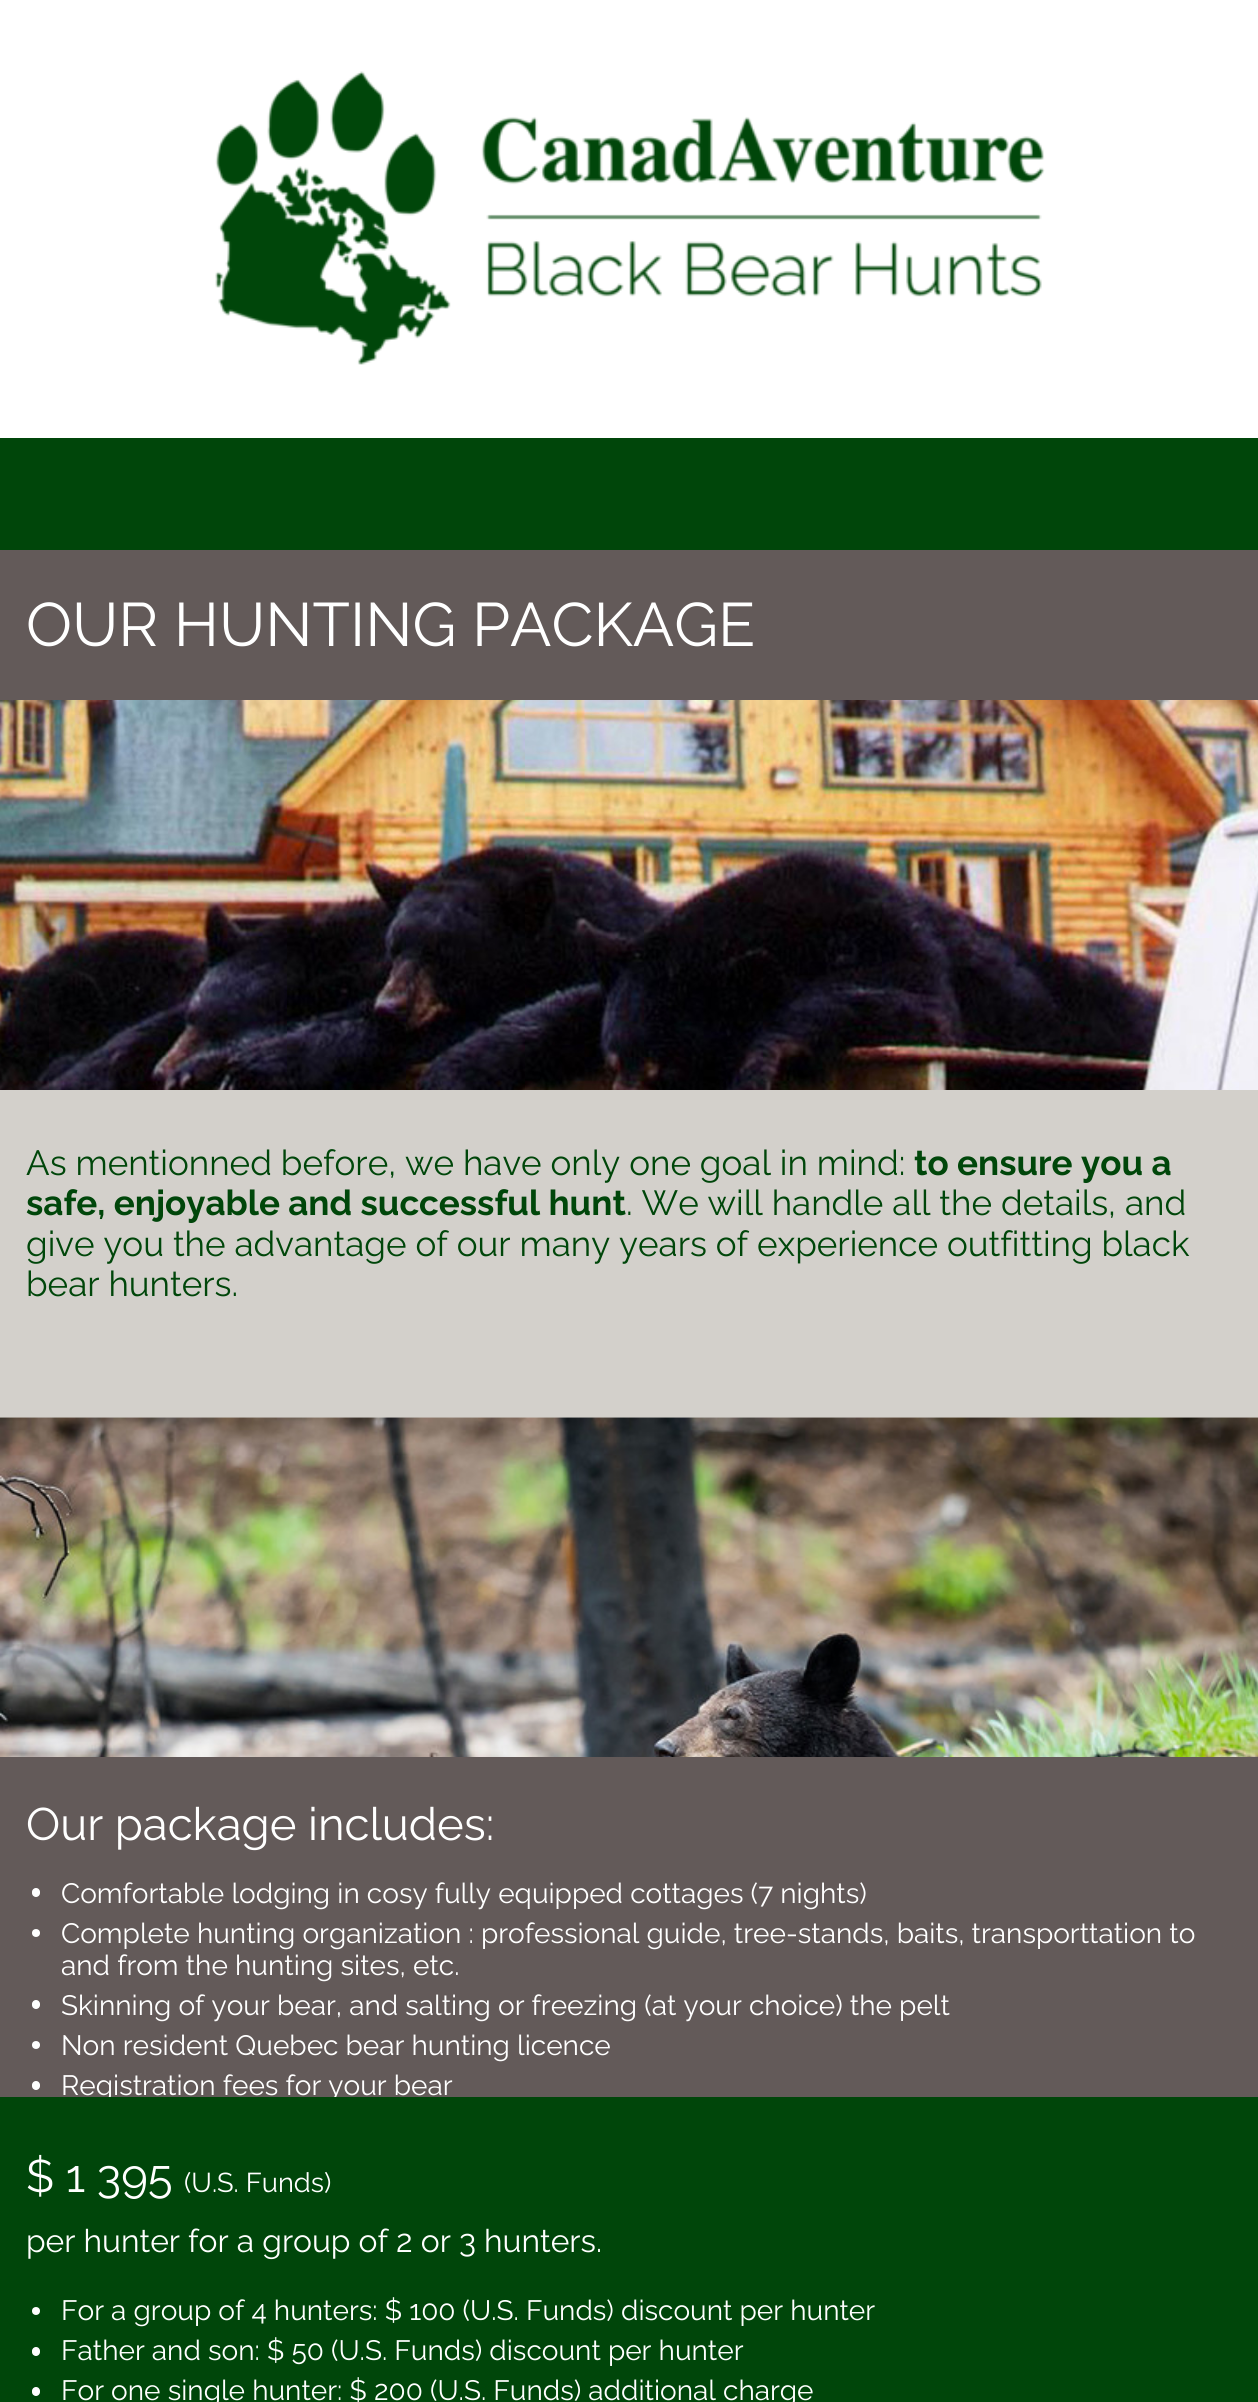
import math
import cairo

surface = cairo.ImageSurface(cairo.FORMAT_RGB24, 1258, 2402)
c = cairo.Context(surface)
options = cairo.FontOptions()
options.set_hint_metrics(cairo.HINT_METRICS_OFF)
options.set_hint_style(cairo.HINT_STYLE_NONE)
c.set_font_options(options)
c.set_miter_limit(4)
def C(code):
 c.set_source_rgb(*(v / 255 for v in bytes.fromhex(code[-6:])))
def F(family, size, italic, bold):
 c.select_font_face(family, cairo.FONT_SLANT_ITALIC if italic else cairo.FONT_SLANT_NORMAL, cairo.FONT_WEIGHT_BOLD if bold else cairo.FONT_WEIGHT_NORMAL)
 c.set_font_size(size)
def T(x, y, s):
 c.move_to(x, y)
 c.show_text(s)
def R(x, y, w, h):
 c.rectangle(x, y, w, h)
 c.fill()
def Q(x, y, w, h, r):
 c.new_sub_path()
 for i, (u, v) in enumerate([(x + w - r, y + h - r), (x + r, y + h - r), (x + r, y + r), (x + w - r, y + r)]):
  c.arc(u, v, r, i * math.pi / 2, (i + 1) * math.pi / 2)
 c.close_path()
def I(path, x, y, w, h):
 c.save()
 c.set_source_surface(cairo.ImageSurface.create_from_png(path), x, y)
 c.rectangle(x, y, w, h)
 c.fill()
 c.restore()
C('ffffff')
c.paint()
I('1.png',215,71,830,294)
C('00460a')
R(0,438,1258,112)
C('635a59')
R(0,550,1258,150)
F('Raleway',61.25,0,0)
C('ffffff')
T(26,646,'OUR HUNTING PACKAGE')
I('2.png',0,700,9,390)
I('3.png',9,700,1249,390)
C('d3d0cb')
R(0,1090,1258,328)
F('Raleway',35,0,0)
C('00460a')
T(26,1175,'As mentionned before, we have only one goal in mind:')
F('Raleway',35,0,1)
T(914,1175,'to ensure you a')
T(26,1215,'safe, enjoyable and successful hunt')
F('Raleway',35,0,0)
T(626,1215,'. We will handle all the details, and')
T(26,1256,'give you the advantage of our many years of experience outfitting black')
T(26,1296,'bear hunters.')
I('4.png',0,1417,1258,1)
I('5.png',0,1417,1258,340)
C('635a59')
R(0,1757,1258,340)
F('Raleway',45.5,0,0)
C('ffffff')
T(26,1840,'Our package includes:')
Q(32,1888,8,9,4)
c.fill()
F('Raleway',28,0,0)
T(61,1903,'Comfortable lodging in cosy fully equipped cottages (7 nights)')
c.new_path()
c.arc(36,1933,4,0,2 * math.pi)
c.fill()
T(61,1943,'Complete hunting organization : professional guide, tree-stands, baits, transporttation to')
T(61,1975,'and from the hunting sites, etc.')
Q(32,2000,8,9,4)
c.fill()
T(61,2015,'Skinning of your bear, and salting or freezing (at your choice) the pelt')
c.new_path()
c.arc(36,2045,4,0,2 * math.pi)
c.fill()
T(61,2055,'Non resident Quebec bear hunting licence')
Q(32,2081,8,9,4)
c.fill()
T(61,2095,'Registration fees for your bear')
C('00460a')
R(0,2097,1258,305)
F('Raleway',45.5,0,0)
C('ffffff')
T(26,2192,'$ 1 395')
F('Raleway',27.25,0,0)
T(184,2192,'(U.S. Funds)')
F('Raleway',31.8,0,0)
T(26,2252,'per hunter for a group of 2 or 3 hunters.')
c.new_path()
c.arc(36,2311,4,0,2 * math.pi)
c.fill()
F('Raleway',28,0,0)
T(61,2320,'For a group of 4 hunters: $ 100 (U.S. Funds) discount per hunter')
Q(32,2347,8,9,4)
c.fill()
T(61,2360,'Father and son: $ 50 (U.S. Funds) discount per hunter')
Q(32,2387,8,9,4)
c.fill()
T(61,2400,'For one single hunter: $ 200 (U.S. Funds) additional charge')
surface.write_to_png('o.png')
